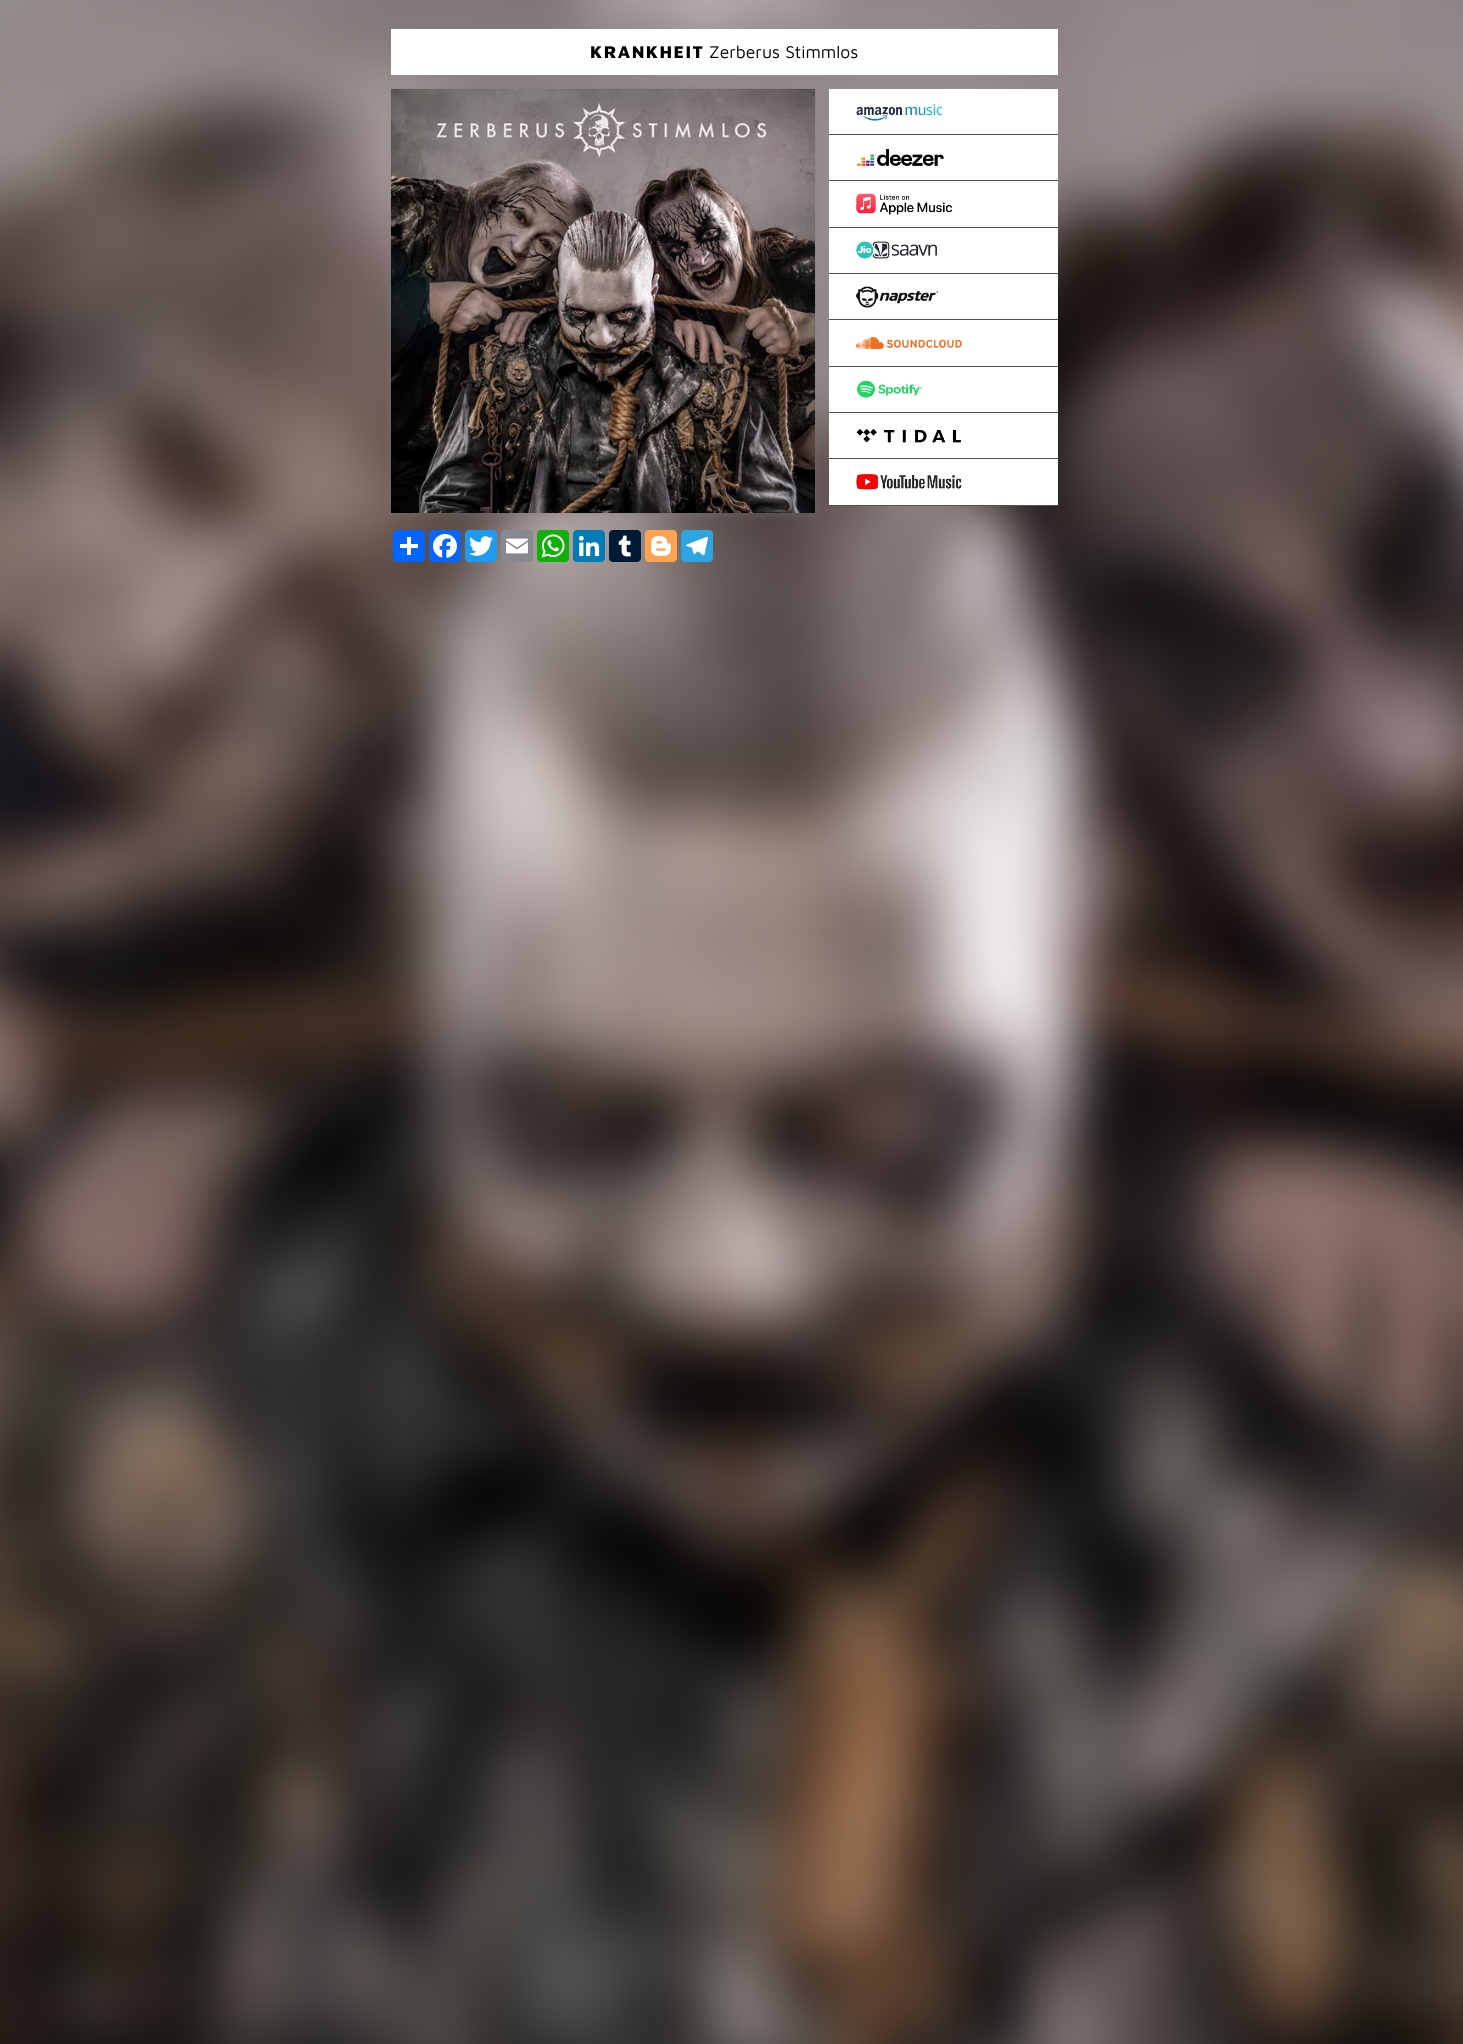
import math
import cairo

surface = cairo.ImageSurface(cairo.FORMAT_RGB24, 1463, 2044)
c = cairo.Context(surface)
options = cairo.FontOptions()
options.set_hint_metrics(cairo.HINT_METRICS_OFF)
options.set_hint_style(cairo.HINT_STYLE_NONE)
c.set_font_options(options)
c.set_miter_limit(4)
def C(code):
 c.set_source_rgb(*(v / 255 for v in bytes.fromhex(code[-6:])))
def F(family, size, italic, bold):
 c.select_font_face(family, cairo.FONT_SLANT_ITALIC if italic else cairo.FONT_SLANT_NORMAL, cairo.FONT_WEIGHT_BOLD if bold else cairo.FONT_WEIGHT_NORMAL)
 c.set_font_size(size)
def T(x, y, s):
 c.move_to(x, y)
 c.show_text(s)
def L(x, y, s, letter, word):
 c.move_to(x, y)
 for ch in s:
  c.show_text(ch)
  c.rel_move_to(letter + word * (ch == ' '), 0)
def R(x, y, w, h):
 c.rectangle(x, y, w, h)
 c.fill()
def Q(x, y, w, h, r):
 c.new_sub_path()
 for i, (u, v) in enumerate([(x + w - r, y + h - r), (x + r, y + h - r), (x + r, y + r), (x + w - r, y + r)]):
  c.arc(u, v, r, i * math.pi / 2, (i + 1) * math.pi / 2)
 c.close_path()
def S(x, y, w, h, r, blur, alpha):
 c.push_group_with_content(cairo.CONTENT_ALPHA)
 c.set_operator(cairo.OPERATOR_SOURCE)
 for i in range(15, -16, -2):
  e = blur * i / 6
  if min(w, h) + 2 * e > 0:
   c.set_source_rgba(0, 0, 0, alpha * math.erfc((i - 1) / 8.5) / 2)
   Q(x - e, y - e, w + 2 * e, h + 2 * e, max(0, min(r + e + blur * .6, min(w, h) / 2 + e)))
   c.fill()
 c.mask(c.pop_group())
def I(path, x, y, w, h):
 c.save()
 c.set_source_surface(cairo.ImageSurface.create_from_png(path), x, y)
 c.rectangle(x, y, w, h)
 c.fill()
 c.restore()
C('ffffff')
c.paint()
I('1.png',0,0,1463,2044)
C('ffffff')
R(391,29,667,46)
F('Maven Pro ExtraBold',17.5,0,0)
C('000000')
L(590,58,'KRANKHEIT',1.5,0)
F('Maven Pro',17.5,0,0)
T(709,58,'Zerberus Stimmlos')
C('7d7d7d')
S(391,89,424,424,0,5,.5)
I('2.png',391,89,424,424)
C('0166ff')
Q(393,530,32,32,4)
c.fill()
C('ffffff')
R(407,537,4,18)
R(400,544,18,4)
C('0866ff')
Q(429,530,32,32,4)
c.fill()
I('3.png',433,534,24,24)
C('1d9bf0')
Q(465,530,32,32,4)
c.fill()
I('4.png',469,536,24,20)
C('888990')
Q(501,530,32,32,4)
c.fill()
I('5.png',506,538,22,16)
C('12af0a')
Q(537,530,32,32,4)
c.fill()
I('6.png',541,534,24,24)
C('007bb5')
Q(573,530,32,32,4)
c.fill()
I('7.png',578,535,22,22)
C('001935')
Q(609,530,32,32,4)
c.fill()
I('8.png',618,535,13,22)
C('fda352')
Q(645,530,32,32,4)
c.fill()
I('9.png',651,536,20,20)
C('2ca5e0')
Q(681,530,32,32,4)
c.fill()
I('10.png',686,536,22,20)
C('ffffff')
R(829,89,229,45)
C('505050')
R(829,134,229,1)
I('11.png',856,104,87,17)
C('ffffff')
R(829,135,229,45)
C('505050')
R(829,180,229,1)
I('12.png',857,149,87,17)
C('ffffff')
R(829,181,229,46)
C('505050')
R(829,227,229,1)
I('13.png',856,193,97,22)
C('ffffff')
R(829,228,229,45)
C('505050')
R(829,273,229,1)
I('14.png',856,241,81,18)
C('ffffff')
R(829,274,229,45)
C('505050')
R(829,319,229,1)
I('15.png',856,286,82,22)
C('ffffff')
R(829,320,229,46)
C('505050')
R(829,366,229,1)
I('16.png',856,337,106,12)
C('ffffff')
R(829,367,229,45)
C('505050')
R(829,412,229,1)
I('17.png',857,381,65,17)
C('ffffff')
R(829,413,229,45)
C('505050')
R(829,458,229,1)
I('18.png',856,429,105,14)
C('ffffff')
R(829,459,229,46)
C('505050')
R(829,505,229,1)
I('19.png',856,474,106,16)
surface.write_to_png('o.png')
